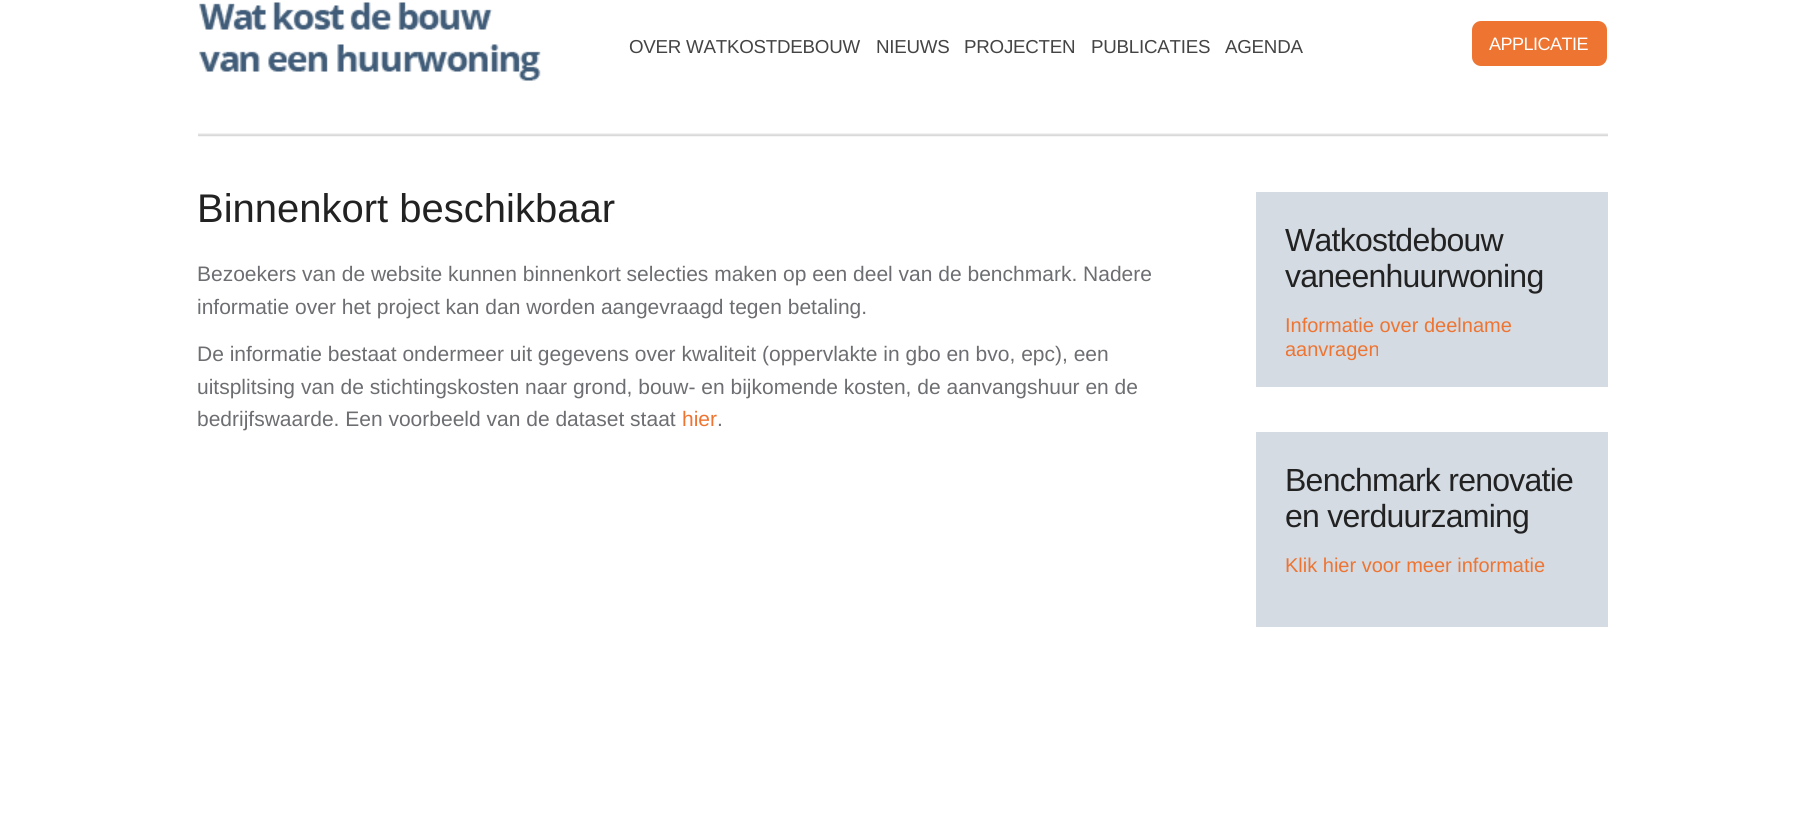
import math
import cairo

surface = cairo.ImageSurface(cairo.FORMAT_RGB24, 1804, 837)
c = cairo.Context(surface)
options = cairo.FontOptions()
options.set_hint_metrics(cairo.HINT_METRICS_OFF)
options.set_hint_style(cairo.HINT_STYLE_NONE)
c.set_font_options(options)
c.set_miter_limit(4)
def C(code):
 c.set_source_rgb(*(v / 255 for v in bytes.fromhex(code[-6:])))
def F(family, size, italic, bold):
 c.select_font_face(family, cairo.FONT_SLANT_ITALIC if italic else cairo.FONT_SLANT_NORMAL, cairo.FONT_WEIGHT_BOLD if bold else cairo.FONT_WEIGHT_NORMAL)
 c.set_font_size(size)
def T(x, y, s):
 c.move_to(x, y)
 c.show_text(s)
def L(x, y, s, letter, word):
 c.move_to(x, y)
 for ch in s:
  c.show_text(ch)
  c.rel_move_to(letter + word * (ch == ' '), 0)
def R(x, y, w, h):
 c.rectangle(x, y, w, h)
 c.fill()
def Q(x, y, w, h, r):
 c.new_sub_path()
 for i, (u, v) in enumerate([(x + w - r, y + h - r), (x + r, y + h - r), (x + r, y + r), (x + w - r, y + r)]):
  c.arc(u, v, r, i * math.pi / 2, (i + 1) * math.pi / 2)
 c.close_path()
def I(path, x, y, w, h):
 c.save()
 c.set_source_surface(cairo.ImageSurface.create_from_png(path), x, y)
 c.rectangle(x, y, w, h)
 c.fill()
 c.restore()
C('ffffff')
c.paint()
I('1.png',199,2,342,79)
F('Liberation Sans',18.75,0,0)
C('444444')
L(629,53,'OVER WATKOSTDEBOUW',-.25,0)
L(876,53,'NIEUWS',-.25,0)
L(964,53,'PROJECTEN',-.25,0)
L(1091,53,'PUBLICATIES',-.25,0)
L(1225,53,'AGENDA',-.25,0)
C('ee7431')
Q(1473,22,133,43,8)
c.fill_preserve()
c.stroke()
F('Liberation Sans',18,0,0)
C('ffffff')
L(1489,50,'APPLICATIE',-.5,0)
I('2.png',198,133,1410,4)
F('Liberation Sans',40,0,0)
C('222222')
T(197,222,'Binnenkort beschikbaar')
F('Liberation Sans',21,0,0)
C('6d6e71')
T(197,281,'Bezoekers van de website kunnen binnenkort selecties maken op een deel van de benchmark. Nadere')
T(197,314,'informatie over het project kan dan worden aangevraagd tegen betaling.')
T(197,361,'De informatie bestaat ondermeer uit gegevens over kwaliteit (oppervlakte in gbo en bvo, epc), een')
T(197,394,'uitsplitsing van de stichtingskosten naar grond, bouw- en bijkomende kosten, de aanvangshuur en de')
T(197,426,'bedrijfswaarde. Een voorbeeld van de dataset staat')
C('ee7431')
T(682,426,'hier')
C('6d6e71')
T(717,426,'.')
C('d4dbe3')
R(1256,192,352,195)
F('Liberation Sans',32,0,0)
C('222222')
L(1285,251,'Watkostdebouw',-.75,0)
L(1285,287,'vaneenhuurwoning',-.75,0)
F('Liberation Sans',20,0,0)
C('ee7431')
T(1285,332,'Informatie over deelname')
c.save()
c.rectangle(1286,314,292,90)
c.clip()
T(1285,356,'aanvragen')
c.restore()
C('d4dbe3')
R(1256,432,352,195)
F('Liberation Sans',32,0,0)
C('222222')
L(1285,491,'Benchmark renovatie',-.75,0)
L(1285,527,'en verduurzaming',-.75,0)
F('Liberation Sans',20,0,0)
C('ee7431')
T(1285,572,'Klik hier voor meer informatie')
surface.write_to_png('o.png')
